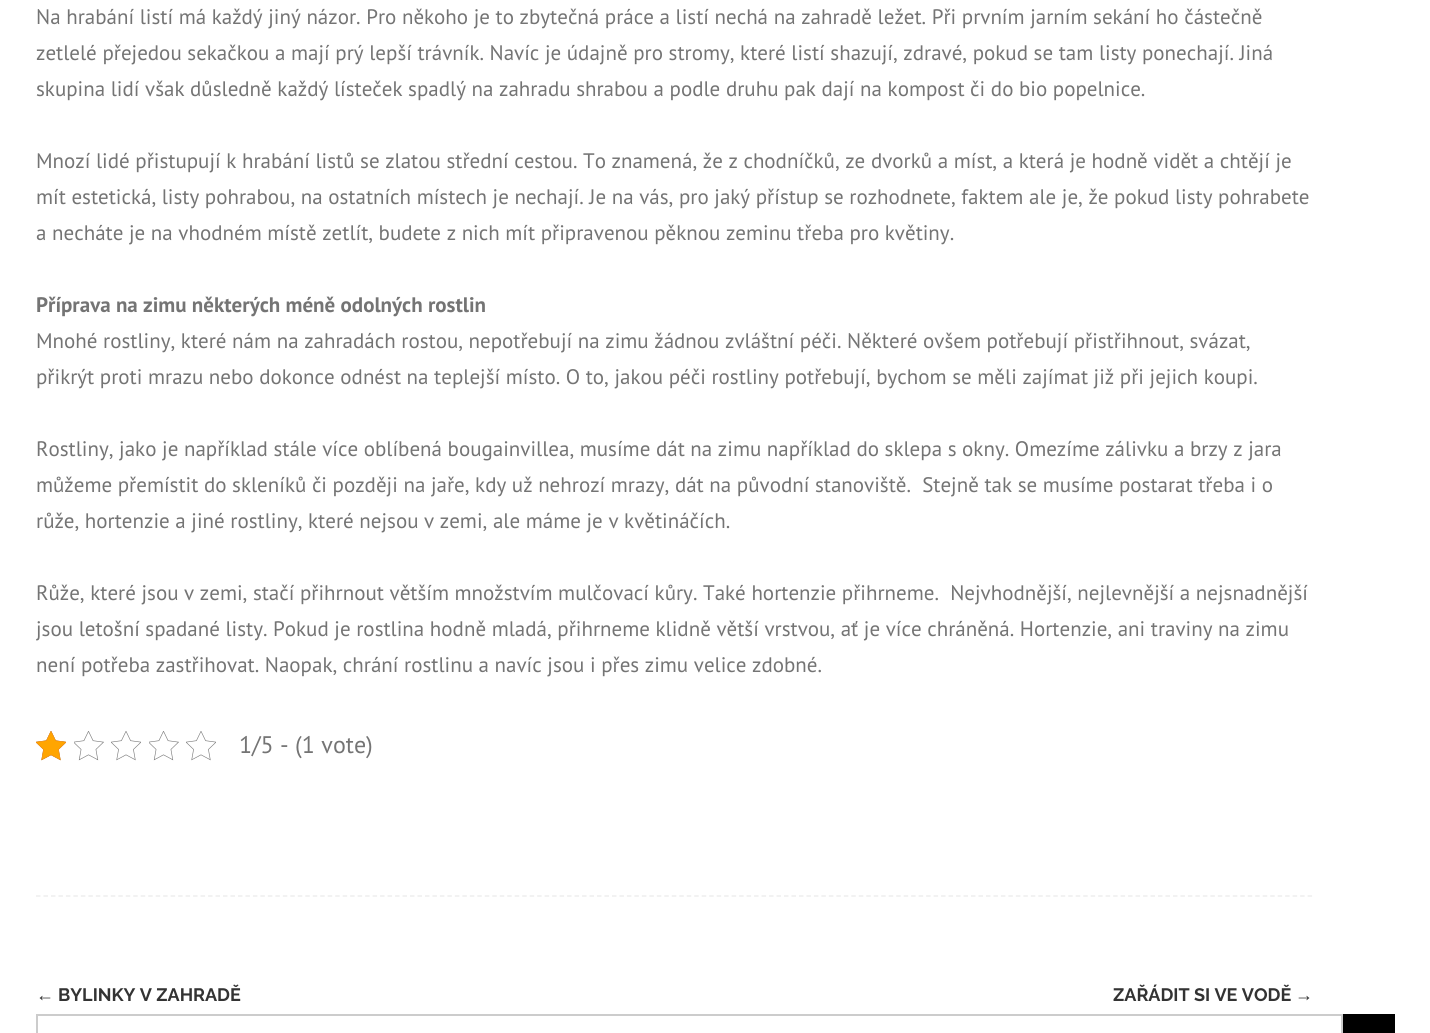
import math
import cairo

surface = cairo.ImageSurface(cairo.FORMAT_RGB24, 1430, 1033)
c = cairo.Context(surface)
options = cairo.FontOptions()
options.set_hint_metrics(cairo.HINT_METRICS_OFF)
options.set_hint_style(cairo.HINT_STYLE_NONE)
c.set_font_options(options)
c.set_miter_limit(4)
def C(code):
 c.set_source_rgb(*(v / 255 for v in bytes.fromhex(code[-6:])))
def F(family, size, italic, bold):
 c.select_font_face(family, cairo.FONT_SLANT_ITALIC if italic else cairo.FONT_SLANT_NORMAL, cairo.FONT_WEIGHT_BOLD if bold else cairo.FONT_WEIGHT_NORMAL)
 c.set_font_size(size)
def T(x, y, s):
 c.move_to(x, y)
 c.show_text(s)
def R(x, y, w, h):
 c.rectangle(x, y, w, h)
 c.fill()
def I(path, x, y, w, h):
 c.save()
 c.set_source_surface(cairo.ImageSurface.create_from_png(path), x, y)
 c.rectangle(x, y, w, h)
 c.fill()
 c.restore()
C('ffffff')
c.paint()
F('PT Sans',21,0,0)
C('747474')
T(36,24,'Na hrabání listí má každý jiný názor. Pro někoho je to zbytečná práce a listí nechá na zahradě ležet. Při prvním jarním sekání ho částečně')
T(36,60,'zetlelé přejedou sekačkou a mají prý lepší trávník. Navíc je údajně pro stromy, které listí shazují, zdravé, pokud se tam listy ponechají. Jiná')
T(36,96,'skupina lidí však důsledně každý lísteček spadlý na zahradu shrabou a podle druhu pak dají na kompost či do bio popelnice.')
T(36,168,'Mnozí lidé přistupují k hrabání listů se zlatou střední cestou. To znamená, že z chodníčků, ze dvorků a míst, a která je hodně vidět a chtějí je')
T(36,204,'mít estetická, listy pohrabou, na ostatních místech je nechají. Je na vás, pro jaký přístup se rozhodnete, faktem ale je, že pokud listy pohrabete')
T(36,240,'a necháte je na vhodném místě zetlít, budete z nich mít připravenou pěknou zeminu třeba pro květiny.')
F('PT Sans',21,0,1)
T(36,312,'Příprava na zimu některých méně odolných rostlin')
F('PT Sans',21,0,0)
T(36,348,'Mnohé rostliny, které nám na zahradách rostou, nepotřebují na zimu žádnou zvláštní péči. Některé ovšem potřebují přistřihnout, svázat,')
T(36,384,'přikrýt proti mrazu nebo dokonce odnést na teplejší místo. O to, jakou péči rostliny potřebují, bychom se měli zajímat již při jejich koupi.')
T(36,456,'Rostliny, jako je například stále více oblíbená bougainvillea, musíme dát na zimu například do sklepa s okny. Omezíme zálivku a brzy z jara')
T(36,492,'můžeme přemístit do skleníků či později na jaře, kdy už nehrozí mrazy, dát na původní stanoviště.  Stejně tak se musíme postarat třeba i o')
T(36,528,'růže, hortenzie a jiné rostliny, které nejsou v zemi, ale máme je v květináčích.')
T(36,600,'Růže, které jsou v zemi, stačí přihrnout větším množstvím mulčovací kůry. Také hortenzie přihrneme.  Nejvhodnější, nejlevnější a nejsnadnější')
T(36,636,'jsou letošní spadané listy. Pokud je rostlina hodně mladá, přihrneme klidně větší vrstvou, ať je více chráněná. Hortenzie, ani traviny na zimu')
T(36,672,'není potřeba zastřihovat. Naopak, chrání rostlinu a navíc jsou i přes zimu velice zdobné.')
I('1.png',36,731,30,30)
I('2.png',74,731,30,30)
I('1.png',111,731,30,30)
I('2.png',149,731,30,30)
I('1.png',186,731,30,30)
I('3.png',36,731,30,30)
F('PT Sans',24,0,0)
T(239,753,'1/5 - (1 vote)')
c.new_path()
c.move_to(36,896)
c.line_to(1314,896)
C('eeeeee')
c.set_line_width(1.5)
c.set_dash([4.5,2.98])
c.stroke()
F('Liberation Sans',18,0,1)
C('333333')
T(36,1001,'←')
F('Raleway',18,0,1)
T(58,1001,'BYLINKY V ZAHRADĚ')
T(1113,1001,'ZAŘÁDIT SI VE VODĚ')
F('Liberation Sans',18,0,1)
T(1295,1001,'→')
c.rectangle(37,1015,1305,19)
C('cccccc')
c.set_line_width(2)
c.set_dash([])
c.stroke()
C('000000')
R(1343,1014,52,19)
surface.write_to_png('o.png')
